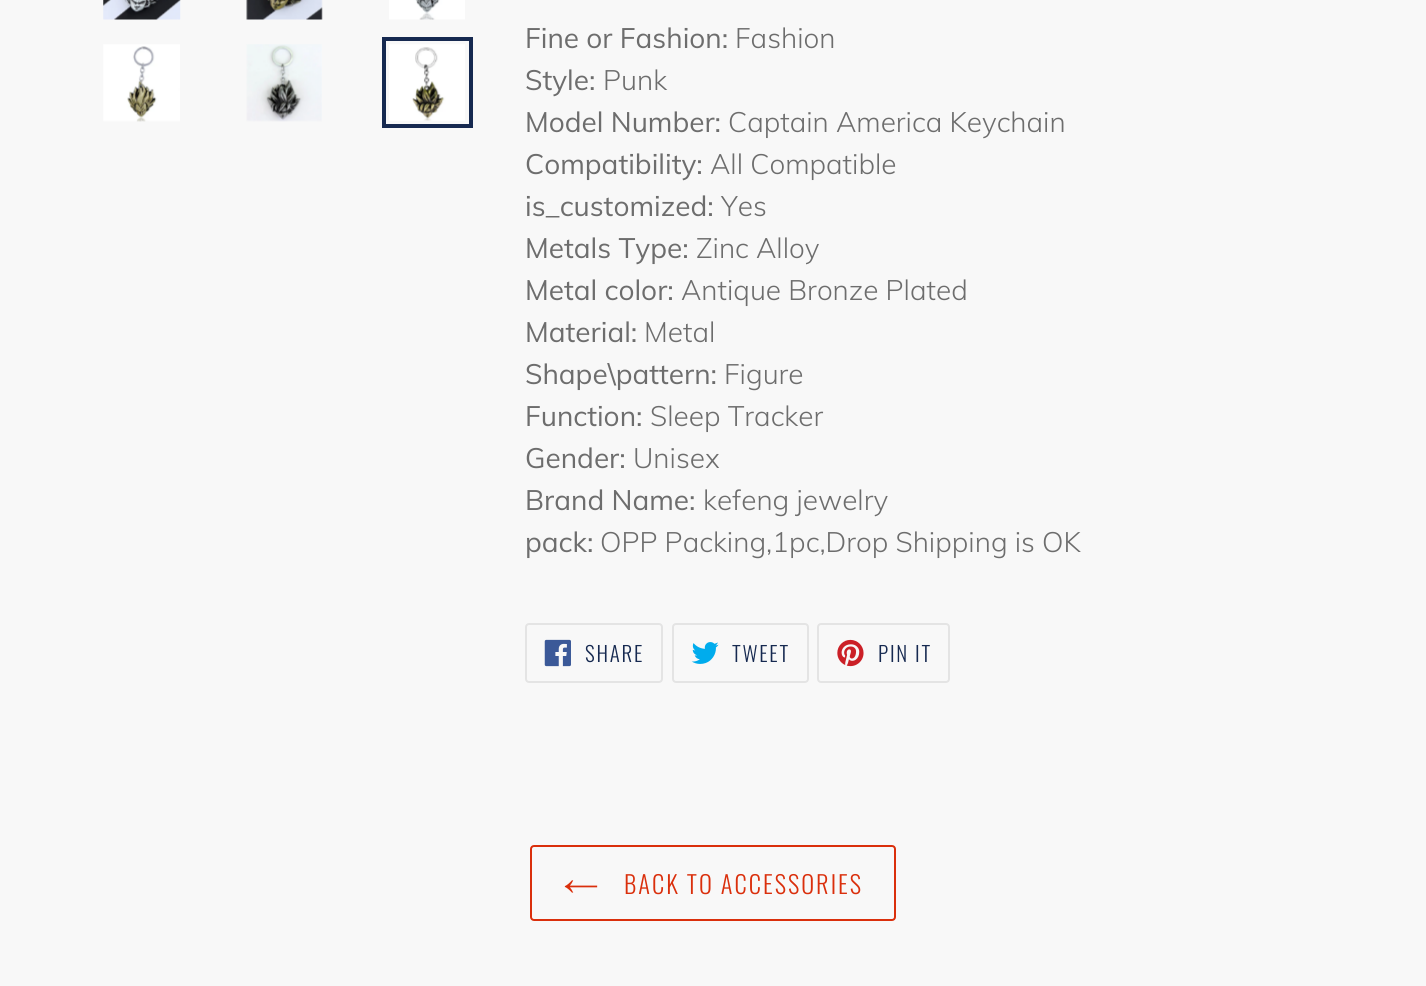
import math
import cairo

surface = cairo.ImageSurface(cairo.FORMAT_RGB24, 1426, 986)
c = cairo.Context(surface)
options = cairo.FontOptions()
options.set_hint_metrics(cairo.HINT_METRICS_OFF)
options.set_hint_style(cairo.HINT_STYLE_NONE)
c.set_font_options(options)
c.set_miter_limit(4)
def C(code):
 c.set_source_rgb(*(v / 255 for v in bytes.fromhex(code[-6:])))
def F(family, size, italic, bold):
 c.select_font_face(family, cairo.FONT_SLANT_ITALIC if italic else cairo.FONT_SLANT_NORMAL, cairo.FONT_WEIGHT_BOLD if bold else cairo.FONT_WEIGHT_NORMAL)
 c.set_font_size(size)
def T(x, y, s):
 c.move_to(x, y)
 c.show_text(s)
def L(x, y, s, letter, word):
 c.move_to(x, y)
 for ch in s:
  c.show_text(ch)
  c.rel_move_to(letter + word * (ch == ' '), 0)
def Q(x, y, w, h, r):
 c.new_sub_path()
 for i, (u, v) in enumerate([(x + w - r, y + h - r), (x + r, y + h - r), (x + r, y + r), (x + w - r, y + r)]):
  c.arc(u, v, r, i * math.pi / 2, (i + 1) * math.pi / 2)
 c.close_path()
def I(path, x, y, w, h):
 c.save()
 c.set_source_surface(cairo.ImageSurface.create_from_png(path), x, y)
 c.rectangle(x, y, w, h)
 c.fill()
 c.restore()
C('f8f8f8')
c.paint()
I('1.png',103,0,78,20)
I('2.png',246,0,77,20)
I('3.png',389,0,76,20)
I('4.png',103,44,77,78)
I('5.png',246,44,76,78)
c.rectangle(384,39,87,87)
C('162950')
c.set_line_width(4)
c.stroke()
I('6.png',389,44,76,77)
F('Muli',28,0,0)
C('6d6d6d')
T(525,48,'Fine or Fashion:')
F('Muli Light',28,0,0)
T(735,48,'Fashion')
F('Muli',28,0,0)
T(525,90,'Style:')
F('Muli Light',28,0,0)
T(603,90,'Punk')
F('Muli',28,0,0)
T(525,132,'Model Number:')
F('Muli Light',28,0,0)
T(728,132,'Captain America Keychain')
F('Muli',28,0,0)
T(525,174,'Compatibility:')
F('Muli Light',28,0,0)
T(710,174,'All Compatible')
F('Muli',28,0,0)
T(525,216,'is_customized:')
F('Muli Light',28,0,0)
T(721,216,'Yes')
F('Muli',28,0,0)
T(525,258,'Metals Type:')
F('Muli Light',28,0,0)
T(696,258,'Zinc Alloy')
F('Muli',28,0,0)
T(525,300,'Metal color:')
F('Muli Light',28,0,0)
T(681,300,'Antique Bronze Plated')
F('Muli',28,0,0)
T(525,342,'Material:')
F('Muli Light',28,0,0)
T(644,342,'Metal')
F('Muli',28,0,0)
T(525,384,'Shape\\pattern:')
F('Muli Light',28,0,0)
T(724,384,'Figure')
F('Muli',28,0,0)
T(525,426,'Function:')
F('Muli Light',28,0,0)
T(650,426,'Sleep Tracker')
F('Muli',28,0,0)
T(525,468,'Gender:')
F('Muli Light',28,0,0)
T(633,468,'Unisex')
F('Muli',28,0,0)
T(525,510,'Brand Name:')
F('Muli Light',28,0,0)
T(703,510,'kefeng jewelry')
F('Muli',28,0,0)
T(525,552,'pack:')
F('Muli Light',28,0,0)
T(600,552,'OPP Packing,1pc,Drop Shipping is OK')
Q(526,624,136,58,3)
C('e4e4e4')
c.set_line_width(2)
c.stroke()
I('7.png',544,639,27,28)
F('Oswald Light',21,0,0)
C('162950')
L(585,662,'SHARE',1.75,0)
Q(673,624,135,58,3)
C('e4e4e4')
c.stroke()
I('8.png',691,642,28,22)
C('162950')
L(732,662,'TWEET',1.75,0)
Q(818,624,131,58,3)
C('e4e4e4')
c.stroke()
I('9.png',837,639,27,28)
C('162950')
L(878,662,'PIN IT',1.75,0)
Q(531,846,364,74,3)
C('da2f0c')
c.stroke()
I('10.png',564,880,34,13)
F('Oswald Light',24.5,0,0)
L(624,894,'BACK TO ACCESSORIES',2,0)
surface.write_to_png('o.png')
